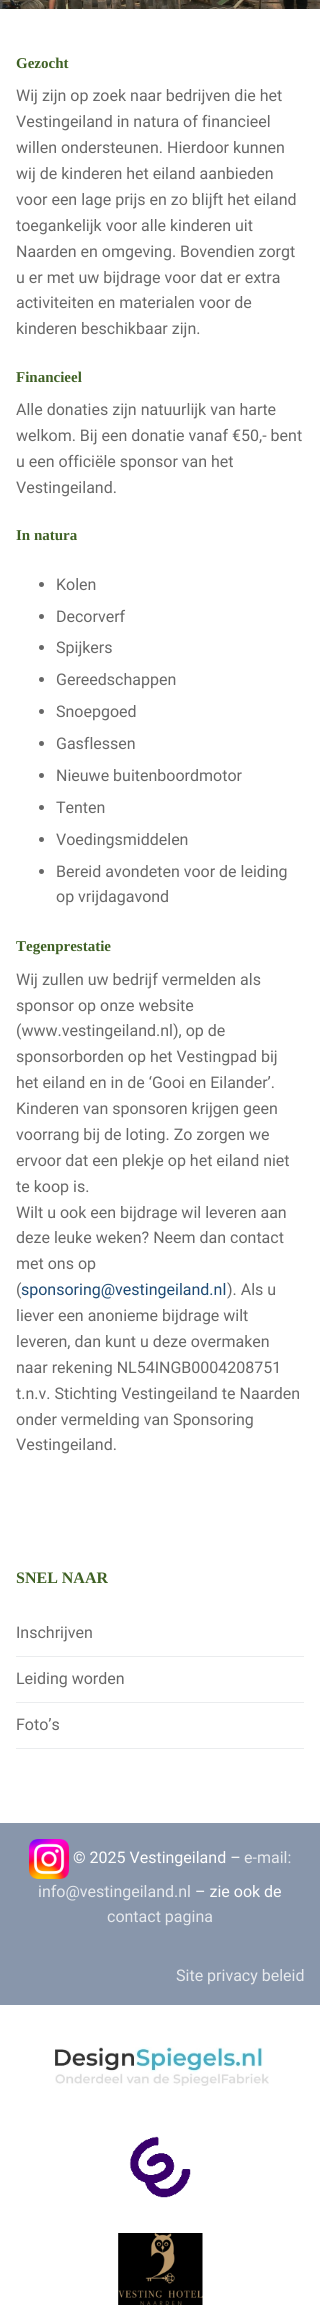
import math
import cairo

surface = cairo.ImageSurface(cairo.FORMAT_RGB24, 320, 2323)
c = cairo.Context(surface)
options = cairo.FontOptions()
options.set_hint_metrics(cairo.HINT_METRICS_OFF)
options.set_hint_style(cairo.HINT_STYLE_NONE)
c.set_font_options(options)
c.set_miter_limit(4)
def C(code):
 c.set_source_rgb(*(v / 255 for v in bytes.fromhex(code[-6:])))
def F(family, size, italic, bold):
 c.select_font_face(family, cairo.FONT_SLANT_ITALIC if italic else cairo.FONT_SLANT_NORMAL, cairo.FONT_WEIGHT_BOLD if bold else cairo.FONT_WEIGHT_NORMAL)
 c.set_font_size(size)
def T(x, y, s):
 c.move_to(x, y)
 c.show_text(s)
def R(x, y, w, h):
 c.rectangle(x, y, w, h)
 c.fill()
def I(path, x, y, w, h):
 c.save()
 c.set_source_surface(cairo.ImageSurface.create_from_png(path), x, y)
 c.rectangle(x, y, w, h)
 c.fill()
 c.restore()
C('ffffff')
c.paint()
I('1.png',0,0,320,9)
F('Liberation Serif',15,0,1)
C('3f6125')
T(16,68,'Gezocht')
F('Roboto',16,0,0)
C('686868')
T(16,101,'Wij zijn op zoek naar bedrijven die het')
T(16,127,'Vestingeiland in natura of financieel')
T(16,153,'willen ondersteunen. Hierdoor kunnen')
T(16,179,'wij de kinderen het eiland aanbieden')
T(16,205,'voor een lage prijs en zo blijft het eiland')
T(16,231,'toegankelijk voor alle kinderen uit')
T(16,257,'Naarden en omgeving. Bovendien zorgt')
T(16,283,'u er met uw bijdrage voor dat er extra')
T(16,308,'activiteiten en materialen voor de')
T(16,334,'kinderen beschikbaar zijn.')
F('Liberation Serif',15,0,1)
C('3f6125')
T(16,382,'Financieel')
F('Roboto',16,0,0)
C('686868')
T(16,415,'Alle donaties zijn natuurlijk van harte')
T(16,441,'welkom. Bij een donatie vanaf €50,- bent')
T(16,467,'u een officiële sponsor van het')
T(16,493,'Vestingeiland.')
F('Liberation Serif',15,0,1)
C('3f6125')
T(16,540,'In natura')
C('686868')
c.new_path()
c.arc(41.5,584.5,2.5,0,2 * math.pi)
c.fill()
F('Roboto',16,0,0)
T(56,590,'Kolen')
c.new_path()
c.arc(41.5,616.5,2.5,0,2 * math.pi)
c.fill()
T(56,622,'Decorverf')
c.new_path()
c.arc(41.5,647.5,2.5,0,2 * math.pi)
c.fill()
T(56,653,'Spijkers')
c.new_path()
c.arc(41.5,679.5,2.5,0,2 * math.pi)
c.fill()
T(56,685,'Gereedschappen')
c.new_path()
c.arc(41.5,711.5,2.5,0,2 * math.pi)
c.fill()
T(56,717,'Snoepgoed')
c.new_path()
c.arc(41.5,743.5,2.5,0,2 * math.pi)
c.fill()
T(56,749,'Gasflessen')
c.new_path()
c.arc(41.5,775.5,2.5,0,2 * math.pi)
c.fill()
T(56,781,'Nieuwe buitenboordmotor')
c.new_path()
c.arc(41.5,807.5,2.5,0,2 * math.pi)
c.fill()
T(56,813,'Tenten')
c.new_path()
c.arc(41.5,839.5,2.5,0,2 * math.pi)
c.fill()
T(56,845,'Voedingsmiddelen')
c.new_path()
c.arc(41.5,871.5,2.5,0,2 * math.pi)
c.fill()
T(56,877,'Bereid avondeten voor de leiding')
T(56,902,'op vrijdagavond')
F('Liberation Serif',15,0,1)
C('3f6125')
T(16,951,'Tegenprestatie')
F('Roboto',16,0,0)
C('686868')
T(16,985,'Wij zullen uw bedrijf vermelden als')
T(16,1011,'sponsor op onze website')
T(16,1036,'(www.vestingeiland.nl), op de')
T(16,1062,'sponsorborden op het Vestingpad bij')
T(16,1088,'het eiland en in de ‘Gooi en Eilander’.')
T(16,1114,'Kinderen van sponsoren krijgen geen')
T(16,1140,'voorrang bij de loting. Zo zorgen we')
T(16,1166,'ervoor dat een plekje op het eiland niet')
T(16,1192,'te koop is.')
T(16,1218,'Wilt u ook een bijdrage wil leveren aan')
T(16,1243,'deze leuke weken? Neem dan contact')
T(16,1269,'met ons op')
T(16,1295,'(')
C('1e4b75')
T(21,1295,'sponsoring@vestingeiland.nl')
C('686868')
T(227,1295,'). Als u')
T(16,1321,'liever een anonieme bijdrage wilt')
T(16,1347,'leveren, dan kunt u deze overmaken')
T(16,1373,'naar rekening NL54INGB0004208751')
T(16,1399,'t.n.v. Stichting Vestingeiland te Naarden')
T(16,1425,'onder vermelding van Sponsoring')
T(16,1450,'Vestingeiland.')
F('Liberation Serif',16,0,1)
C('3f6125')
T(16,1583,'SNEL NAAR')
C('eaecee')
R(16,1656,288,1)
F('Roboto',16,0,0)
C('686868')
T(16,1638,'Inschrijven')
C('eaecee')
R(16,1702,288,1)
C('686868')
T(16,1684,'Leiding worden')
C('eaecee')
R(16,1748,288,1)
C('686868')
T(16,1730,'Foto’s')
C('8896ab')
R(0,1823,320,182)
I('2.png',29,1839,40,40)
C('fefefe')
T(73,1863,'© 2025 Vestingeiland –')
C('e6e9ed')
T(244,1863,'e-mail:')
T(38,1897,'info@vestingeiland.nl')
C('fefefe')
T(195,1897,'– zie ook de')
C('e6e9ed')
T(107,1922,'contact pagina')
T(176,1981,'Site privacy beleid')
I('3.png',55,2047,214,39)
I('4.png',129,2136,62,62)
I('5.png',118,2233,85,72)
surface.write_to_png('o.png')
